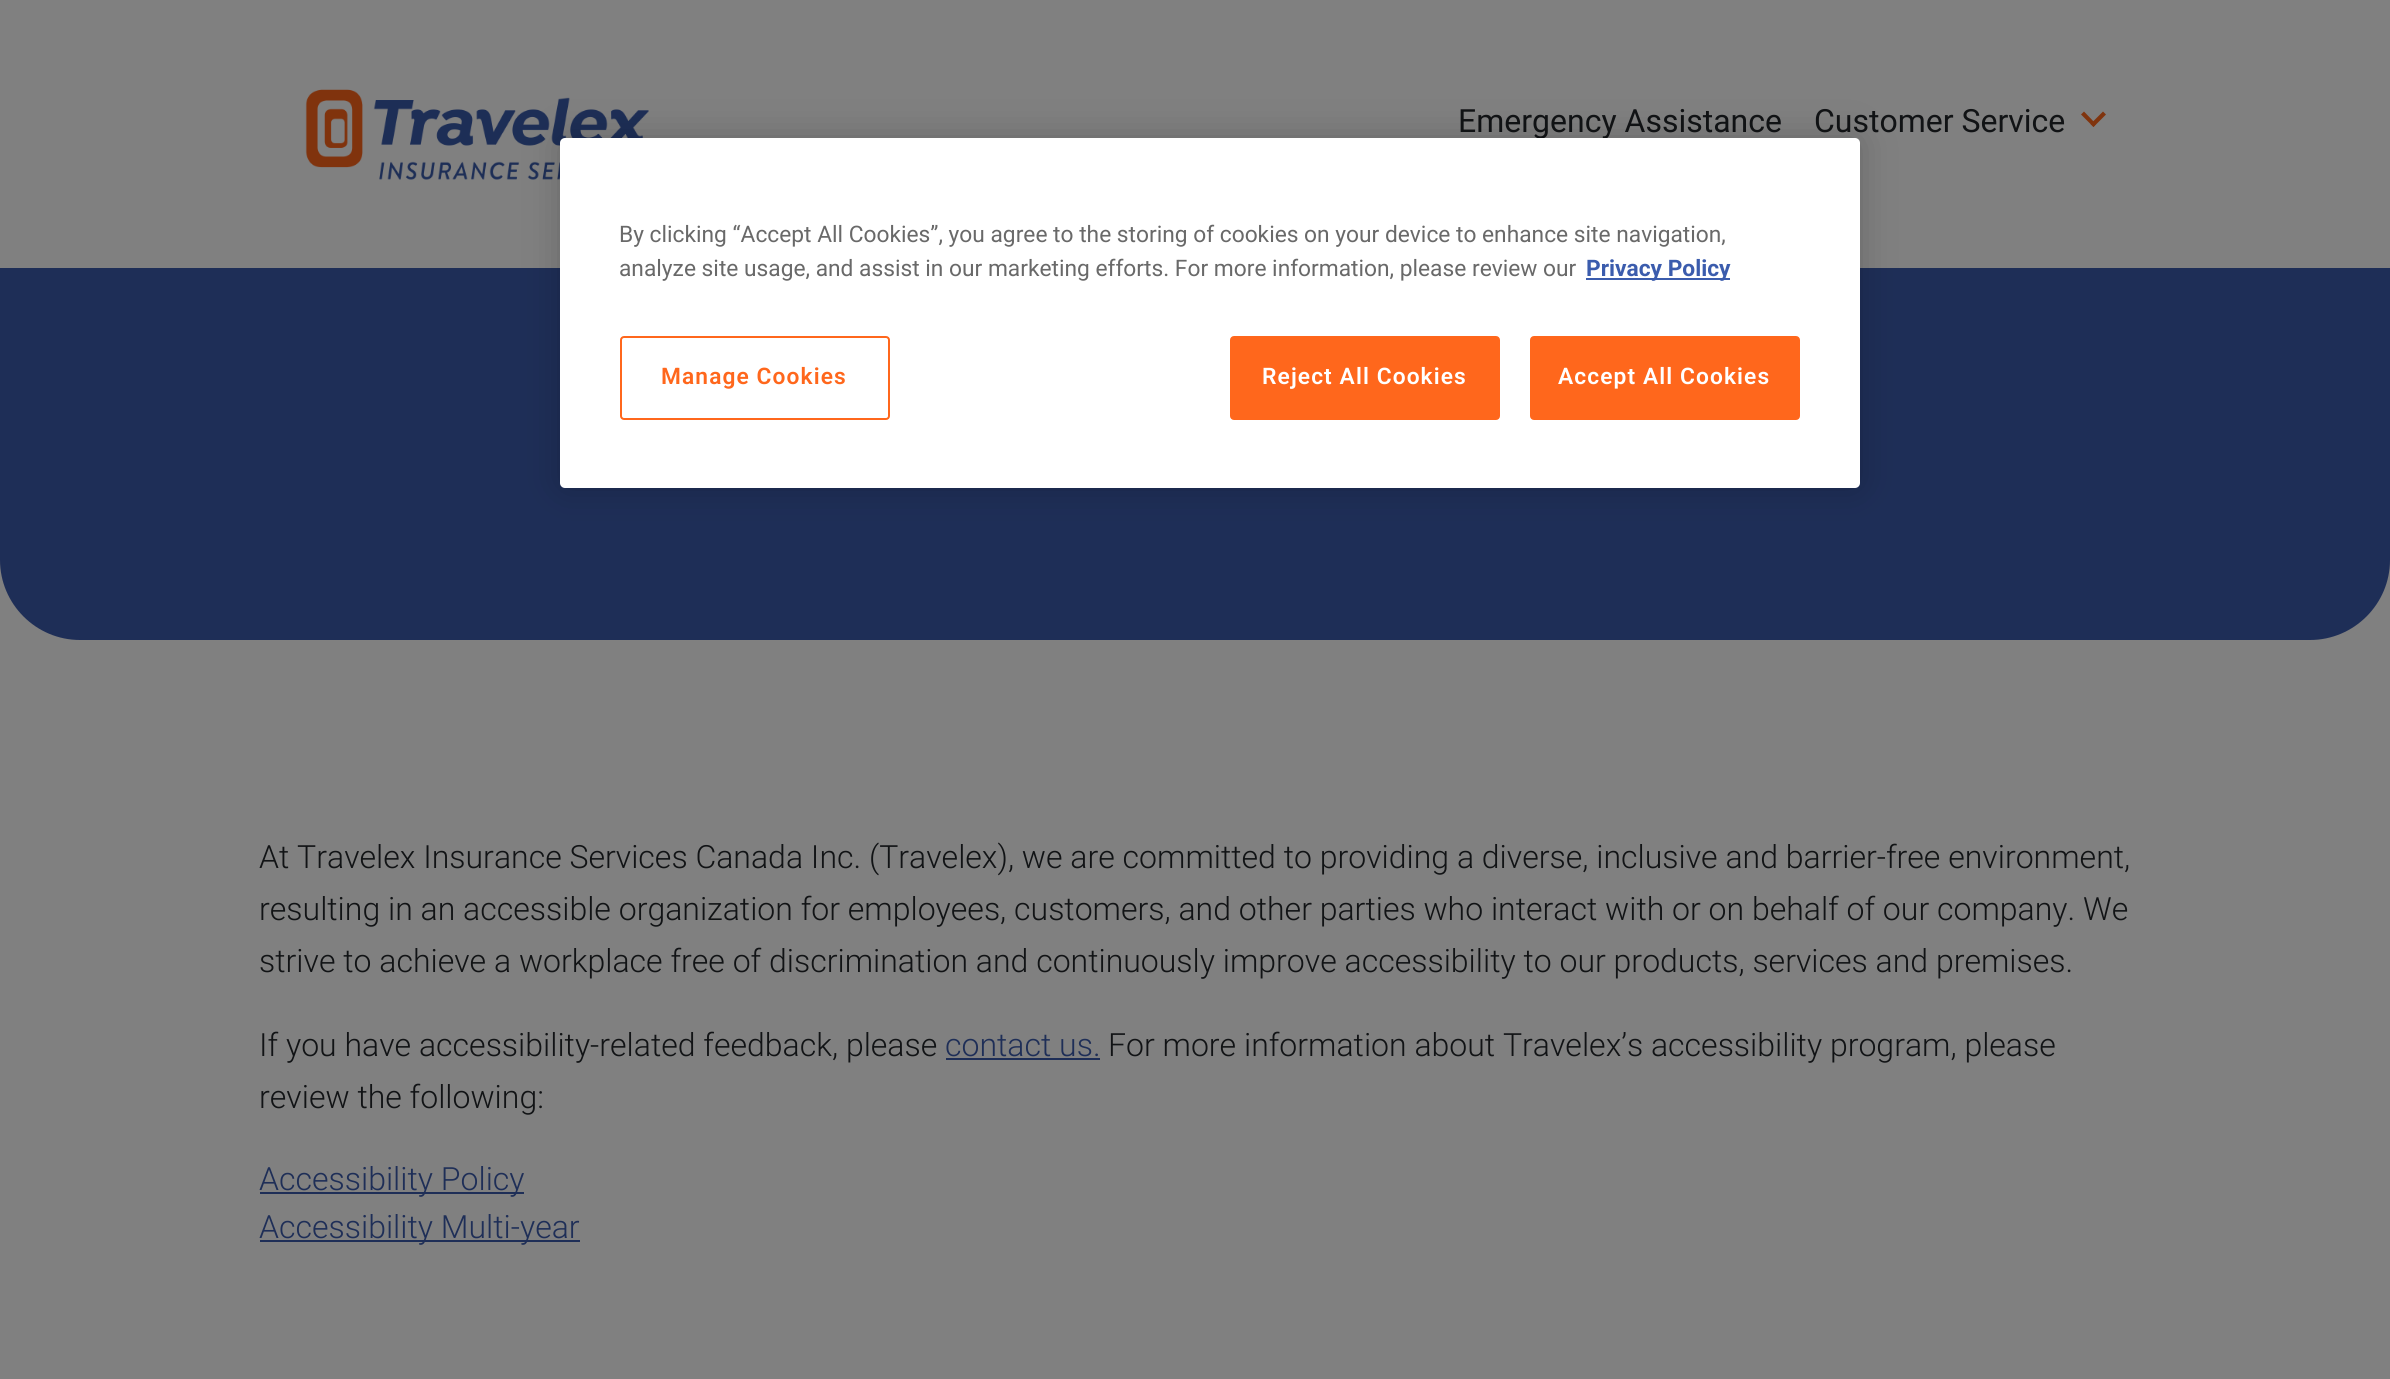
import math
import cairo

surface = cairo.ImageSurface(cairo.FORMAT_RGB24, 2390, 1379)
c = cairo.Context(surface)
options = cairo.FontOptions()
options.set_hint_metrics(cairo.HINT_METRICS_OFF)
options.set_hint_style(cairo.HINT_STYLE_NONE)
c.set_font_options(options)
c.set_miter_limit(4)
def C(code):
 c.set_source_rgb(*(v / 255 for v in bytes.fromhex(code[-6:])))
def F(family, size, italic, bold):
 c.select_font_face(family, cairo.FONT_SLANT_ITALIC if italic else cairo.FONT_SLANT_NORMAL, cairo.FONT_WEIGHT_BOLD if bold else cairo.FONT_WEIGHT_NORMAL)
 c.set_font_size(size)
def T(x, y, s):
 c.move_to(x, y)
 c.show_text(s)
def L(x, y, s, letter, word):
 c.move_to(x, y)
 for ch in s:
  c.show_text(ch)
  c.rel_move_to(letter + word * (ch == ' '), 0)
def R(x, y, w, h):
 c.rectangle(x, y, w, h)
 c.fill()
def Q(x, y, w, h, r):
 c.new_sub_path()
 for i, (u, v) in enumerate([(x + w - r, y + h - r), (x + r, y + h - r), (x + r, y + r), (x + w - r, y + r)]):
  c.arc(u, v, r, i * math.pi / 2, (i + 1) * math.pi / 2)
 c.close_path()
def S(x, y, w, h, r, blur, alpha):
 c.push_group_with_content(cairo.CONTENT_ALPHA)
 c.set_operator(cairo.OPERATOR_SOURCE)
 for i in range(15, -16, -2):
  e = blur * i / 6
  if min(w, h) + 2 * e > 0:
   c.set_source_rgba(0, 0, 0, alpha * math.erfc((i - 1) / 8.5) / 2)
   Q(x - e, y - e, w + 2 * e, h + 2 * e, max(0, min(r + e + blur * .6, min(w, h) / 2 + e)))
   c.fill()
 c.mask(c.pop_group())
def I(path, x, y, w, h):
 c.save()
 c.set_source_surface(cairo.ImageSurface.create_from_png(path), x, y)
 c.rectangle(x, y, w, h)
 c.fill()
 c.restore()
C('808080')
c.paint()
I('1.png',305,89,344,91)
F('Roboto',32,0,0)
C('111315')
T(1458,132,'Emergency Assistance')
T(1814,132,'Customer Service')
C('80340e')
c.new_path()
c.move_to(2106,114.5)
c.line_to(2093.5,127)
c.line_to(2090.5,124)
c.line_to(2103,111.5)
c.close_path()
c.fill()
c.new_path()
c.move_to(2096,124)
c.line_to(2093.5,127)
c.line_to(2081,114.5)
c.line_to(2084,111.5)
c.close_path()
c.fill()
C('1e2e57')
c.new_path()
c.move_to(0,268)
c.line_to(2390,268)
c.line_to(2390,560)
c.curve_to(2390,604,2354,640,2310,640)
c.line_to(80,640)
c.curve_to(36,640,0,604,0,560)
c.close_path()
c.fill()
F('Roboto Light',32,0,0)
C('111315')
T(259,868,'At Travelex Insurance Services Canada Inc. (Travelex), we are committed to providing a diverse, inclusive and barrier-free environment,')
T(259,920,'resulting in an accessible organization for employees, customers, and other parties who interact with or on behalf of our company. We')
T(259,972,'strive to achieve a workplace free of discrimination and continuously improve accessibility to our products, services and premises.')
T(259,1056,'If you have accessibility-related feedback, please')
C('1e2e57')
T(945,1056,'contact us.')
R(946,1058,154,2)
C('111315')
T(1108,1056,'For more information about Travelex’s accessibility program, please')
T(259,1108,'review the following:')
C('1e2e57')
R(260,1192,264,2)
T(259,1190,'Accessibility Policy')
R(260,1240,320,2)
T(259,1238,'Accessibility Multi-year')
C('000000')
S(560,138,1300,350,5,18,.2)
C('ffffff')
Q(560,138,1300,350,5)
c.fill()
F('Roboto',22.75,0,0)
C('696969')
T(619,242,'By clicking “Accept All Cookies”, you agree to the storing of cookies on your device to enhance site navigation,')
T(619,276,'analyze site usage, and assist in our marketing efforts. For more information, please review our')
C('3b5cad')
R(1586,278,144,2)
F('Roboto',22.75,0,1)
T(1586,276,'Privacy Policy')
Q(621,337,268,82,3)
C('ff671c')
c.stroke()
F('Roboto SemiBold',22.75,0,0)
L(661,384,'Manage Cookies',1.1,0)
Q(1231,337,268,82,3)
c.fill_preserve()
c.stroke()
C('ffffff')
L(1262,384,'Reject All Cookies',1.1,0)
C('ff671c')
Q(1531,337,268,82,3)
c.fill_preserve()
c.stroke()
C('ffffff')
L(1558,384,'Accept All Cookies',1.1,0)
surface.write_to_png('o.png')
